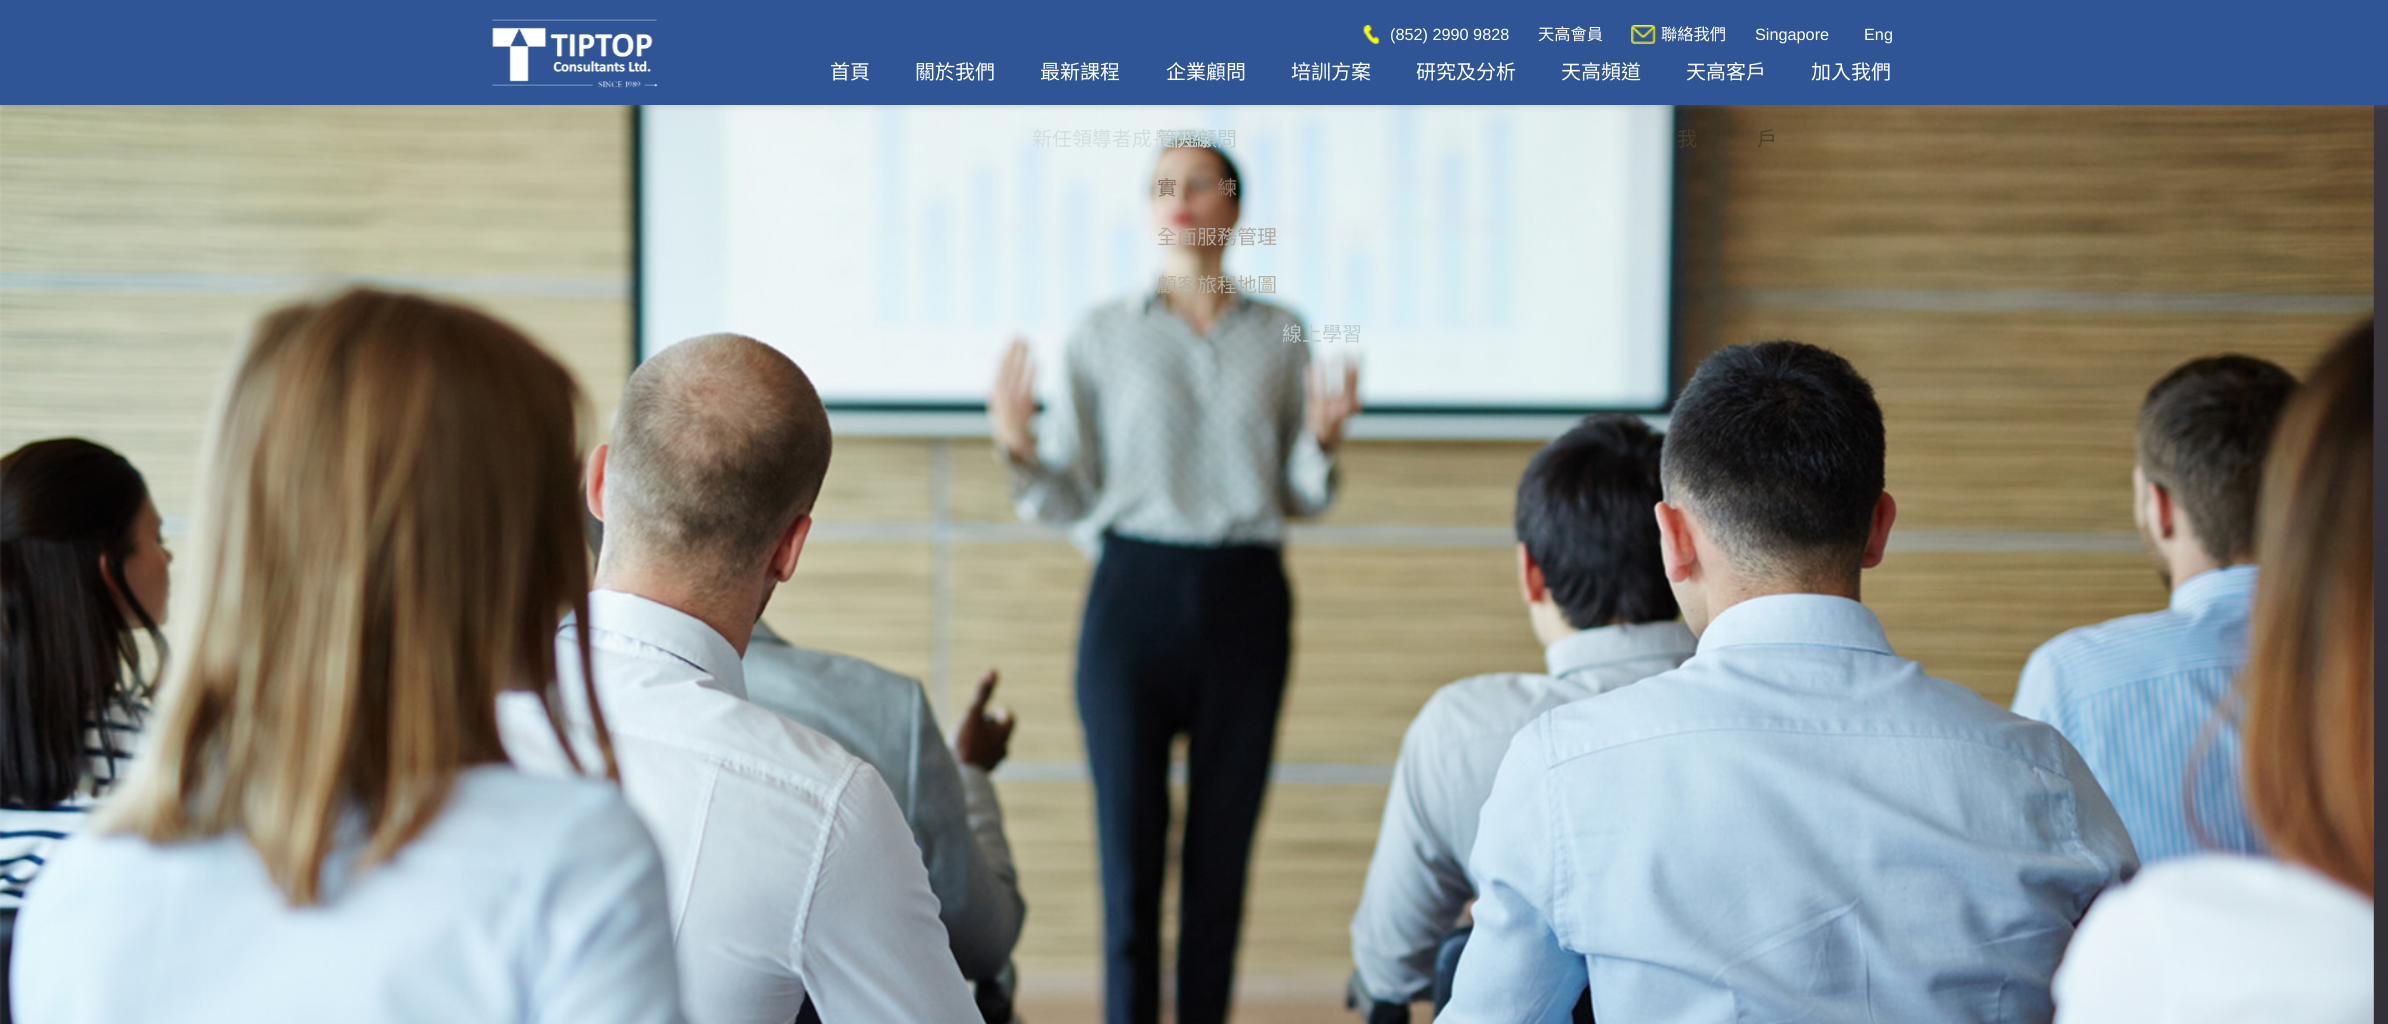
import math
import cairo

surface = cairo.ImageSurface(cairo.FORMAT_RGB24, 2388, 1024)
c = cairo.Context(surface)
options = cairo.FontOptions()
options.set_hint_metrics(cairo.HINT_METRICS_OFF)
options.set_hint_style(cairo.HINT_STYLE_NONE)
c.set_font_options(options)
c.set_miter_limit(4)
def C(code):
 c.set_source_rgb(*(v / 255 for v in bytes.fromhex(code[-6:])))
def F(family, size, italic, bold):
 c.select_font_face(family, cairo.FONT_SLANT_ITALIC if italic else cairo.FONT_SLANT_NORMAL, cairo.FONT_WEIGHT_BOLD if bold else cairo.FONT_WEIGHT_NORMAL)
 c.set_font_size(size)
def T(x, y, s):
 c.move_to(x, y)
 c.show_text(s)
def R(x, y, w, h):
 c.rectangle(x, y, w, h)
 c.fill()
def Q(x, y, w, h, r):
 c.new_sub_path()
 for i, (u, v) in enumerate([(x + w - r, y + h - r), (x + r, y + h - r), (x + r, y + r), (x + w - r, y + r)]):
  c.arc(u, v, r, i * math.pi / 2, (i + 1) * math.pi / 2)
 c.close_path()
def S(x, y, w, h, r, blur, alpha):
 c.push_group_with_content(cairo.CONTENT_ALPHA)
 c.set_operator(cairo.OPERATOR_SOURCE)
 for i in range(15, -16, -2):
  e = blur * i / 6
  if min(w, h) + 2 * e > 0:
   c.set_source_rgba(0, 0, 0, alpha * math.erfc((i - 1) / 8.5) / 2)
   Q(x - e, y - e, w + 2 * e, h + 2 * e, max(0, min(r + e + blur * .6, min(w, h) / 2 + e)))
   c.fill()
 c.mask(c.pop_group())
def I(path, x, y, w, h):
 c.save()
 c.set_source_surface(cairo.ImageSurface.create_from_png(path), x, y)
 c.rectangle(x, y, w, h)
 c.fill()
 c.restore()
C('ffffff')
c.paint()
I('4.png',0,105,2388,919)
C('8d8b8b')
S(3,3,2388,105,0,2.5,.2)
C('2f5597')
R(0,0,2388,105)
I('1.png',492,19,166,69)
I('2.png',1363,25,17,19)
F('Liberation Sans',16.25,0,0)
C('ffffff')
T(1390,40,'(852) 2990 9828')
F('Noto Sans CJK HK',16.25,0,0)
T(1538,40,'天高會員')
I('3.png',1631,25,25,19)
T(1661,40,'聯絡我們')
F('Liberation Sans',16.25,0,0)
T(1755,40,'Singapore')
T(1864,40,'Eng')
F('Noto Sans CJK HK',20,0,0)
T(830,79,'首頁')
T(915,79,'關於我們')
T(1040,79,'最新課程')
C('d2dede')
T(1032,146,'新任領導者成長快線')
C('ffffff')
T(1166,79,'企業顧問')
C('bacbcd')
T(1157,146,'管理顧問')
C('8b7361')
T(1157,195,'實')
T(1217,195,'練')
C('b2a9a0')
T(1157,244,'全面服務管理')
C('b2b0a3')
T(1157,292,'顧客旅程地圖')
C('ffffff')
T(1291,79,'培訓方案')
C('bacbcd')
T(1282,341,'線上學習')
C('ffffff')
T(1416,79,'研究及分析')
T(1561,79,'天高頻道')
T(1686,79,'天高客戶')
C('4b3d29')
T(1677,146,'我')
T(1757,146,'戶')
C('ffffff')
T(1811,79,'加入我們')
surface.write_to_png('o.png')
